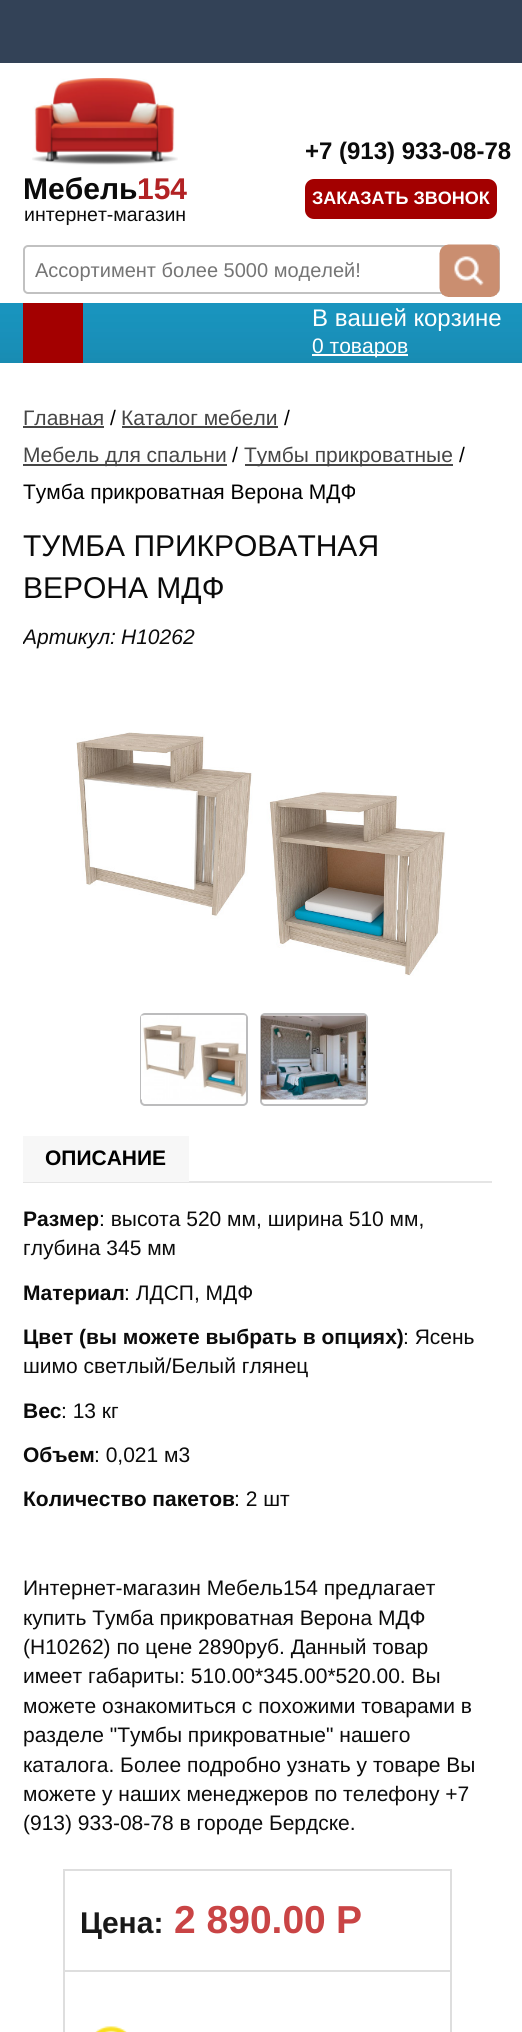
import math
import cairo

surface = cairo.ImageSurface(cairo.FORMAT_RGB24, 522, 2032)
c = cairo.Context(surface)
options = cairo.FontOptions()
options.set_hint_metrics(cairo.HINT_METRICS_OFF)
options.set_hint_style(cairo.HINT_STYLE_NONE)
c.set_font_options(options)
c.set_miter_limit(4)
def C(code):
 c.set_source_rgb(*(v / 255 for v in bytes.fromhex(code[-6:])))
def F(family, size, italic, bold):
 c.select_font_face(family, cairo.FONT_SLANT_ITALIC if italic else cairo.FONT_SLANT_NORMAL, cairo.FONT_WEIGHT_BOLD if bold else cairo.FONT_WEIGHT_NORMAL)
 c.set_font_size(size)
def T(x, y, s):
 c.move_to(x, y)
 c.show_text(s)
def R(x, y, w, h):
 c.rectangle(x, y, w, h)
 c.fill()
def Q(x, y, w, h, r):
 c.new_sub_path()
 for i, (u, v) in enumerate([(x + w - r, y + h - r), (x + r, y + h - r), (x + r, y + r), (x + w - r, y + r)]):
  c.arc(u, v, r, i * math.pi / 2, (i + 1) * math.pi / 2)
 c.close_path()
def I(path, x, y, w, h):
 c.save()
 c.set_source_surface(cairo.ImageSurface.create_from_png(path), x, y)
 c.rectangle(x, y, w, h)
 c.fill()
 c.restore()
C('ffffff')
c.paint()
C('334257')
R(0,0,522,63)
F('Liberation Sans',24,0,1)
C('0b0b0b')
T(305,159,'+7 (913) 933-08-78')
C('a30000')
Q(305,179,192,40,9)
c.fill()
F('Liberation Sans',18,0,1)
C('ffffff')
T(312,204,'ЗАКАЗАТЬ ЗВОНОК')
Q(24,246,475,47,4)
C('c1c1c1')
c.stroke()
c.save()
c.rectangle(35,258,423,23)
c.clip()
F('Liberation Sans',20,0,0)
C('757575')
T(35,277,'Ассортимент более 5000 моделей!')
c.restore()
I('1.png',439,244,61,53)
I('3.png',0,303,522,60)
F('Liberation Sans',24,0,0)
C('ffffff')
T(312,326,'В вашей корзине')
R(312,354,96,2)
F('Liberation Sans',21,0,0)
T(312,353,'0 товаров')
I('2.png',32,78,146,87)
F('Liberation Sans',30,0,1)
C('0b0b0b')
T(23,199,'Мебель')
C('b22224')
T(137,199,'154')
F('Liberation Sans',19.5,0,0)
C('0b0b0b')
T(24,221,'интернет-магазин')
C('a30000')
R(23,303,60,60)
F('Liberation Sans',21,0,0)
C('464646')
T(23,425,'Главная')
R(23,426,81,2)
C('000000')
T(110,425,'/')
C('464646')
T(121,425,'Каталог мебели')
R(122,426,156,2)
C('000000')
T(284,425,'/')
C('464646')
R(23,464,204,2)
T(23,462,'Мебель для спальни')
C('000000')
T(232,462,'/')
C('464646')
R(245,464,208,2)
T(244,462,'Тумбы прикроватные')
C('000000')
T(459,462,'/')
T(23,499,'Тумба прикроватная Верона МДФ')
F('Liberation Sans',30,0,0)
C('0b0b0b')
T(23,556,'ТУМБА ПРИКРОВАТНАЯ')
T(23,598,'ВЕРОНА МДФ')
c.save()
c.rectangle(23,368,477,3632)
c.clip()
F('Liberation Sans',21,1,0)
T(23,644,'Артикул:')
c.restore()
F('Liberation Sans',21,1,0)
T(121,644,'H10262')
I('4.png',76,732,370,244)
Q(141,1014,106,91,4)
C('bcbcbd')
c.stroke()
I('5.png',141,1015,105,85)
Q(261,1014,106,91,4)
c.stroke()
I('6.png',261,1015,105,85)
C('e5e5e5')
R(23,1181,469,2)
C('f7f7f7')
R(23,1136,166,46)
F('Liberation Sans',21,0,1)
C('000000')
T(45,1165,'ОПИСАНИЕ')
C('0b0b0b')
T(23,1226,'Размер')
F('Liberation Sans',21,0,0)
T(99,1226,': высота 520 мм, ширина 510 мм,')
T(23,1255,'глубина 345 мм')
F('Liberation Sans',21,0,1)
T(23,1300,'Материал')
F('Liberation Sans',21,0,0)
T(124,1300,': ЛДСП, МДФ')
F('Liberation Sans',21,0,1)
T(23,1344,'Цвет (вы можете выбрать в опциях)')
F('Liberation Sans',21,0,0)
T(403,1344,': Ясень')
T(23,1373,'шимо светлый/Белый глянец')
F('Liberation Sans',21,0,1)
T(23,1418,'Вес')
F('Liberation Sans',21,0,0)
T(61,1418,': 13 кг')
F('Liberation Sans',21,0,1)
T(23,1462,'Объем')
F('Liberation Sans',21,0,0)
T(94,1462,': 0,021 м3')
F('Liberation Sans',21,0,1)
T(23,1506,'Количество пакетов')
F('Liberation Sans',21,0,0)
T(234,1506,': 2 шт')
T(23,1595,'Интернет-магазин Мебель154 предлагает')
T(23,1625,'купить Тумба прикроватная Верона МДФ')
T(23,1654,'(H10262) по цене 2890руб. Данный товар')
T(23,1683,'имеет габариты: 510.00*345.00*520.00. Вы')
T(23,1713,'можете ознакомиться с похожими товарами в')
T(23,1742,'разделе "Тумбы прикроватные" нашего')
T(23,1772,'каталога. Более подробно узнать у товаре Вы')
T(23,1801,'можете у наших менеджеров по телефону +7')
T(23,1830,'(913) 933-08-78 в городе Бердске.')
c.rectangle(64,1870,387,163)
C('dedede')
c.stroke()
R(65,1970,385,2)
F('Liberation Sans',30,0,1)
C('191919')
T(80,1933,'Цена:')
F('Liberation Sans',39,0,1)
C('c94445')
T(174,1933,'2 890.00')
T(336,1933,'Р')
I('7.png',95,2026,32,6)
surface.write_to_png('o.png')
